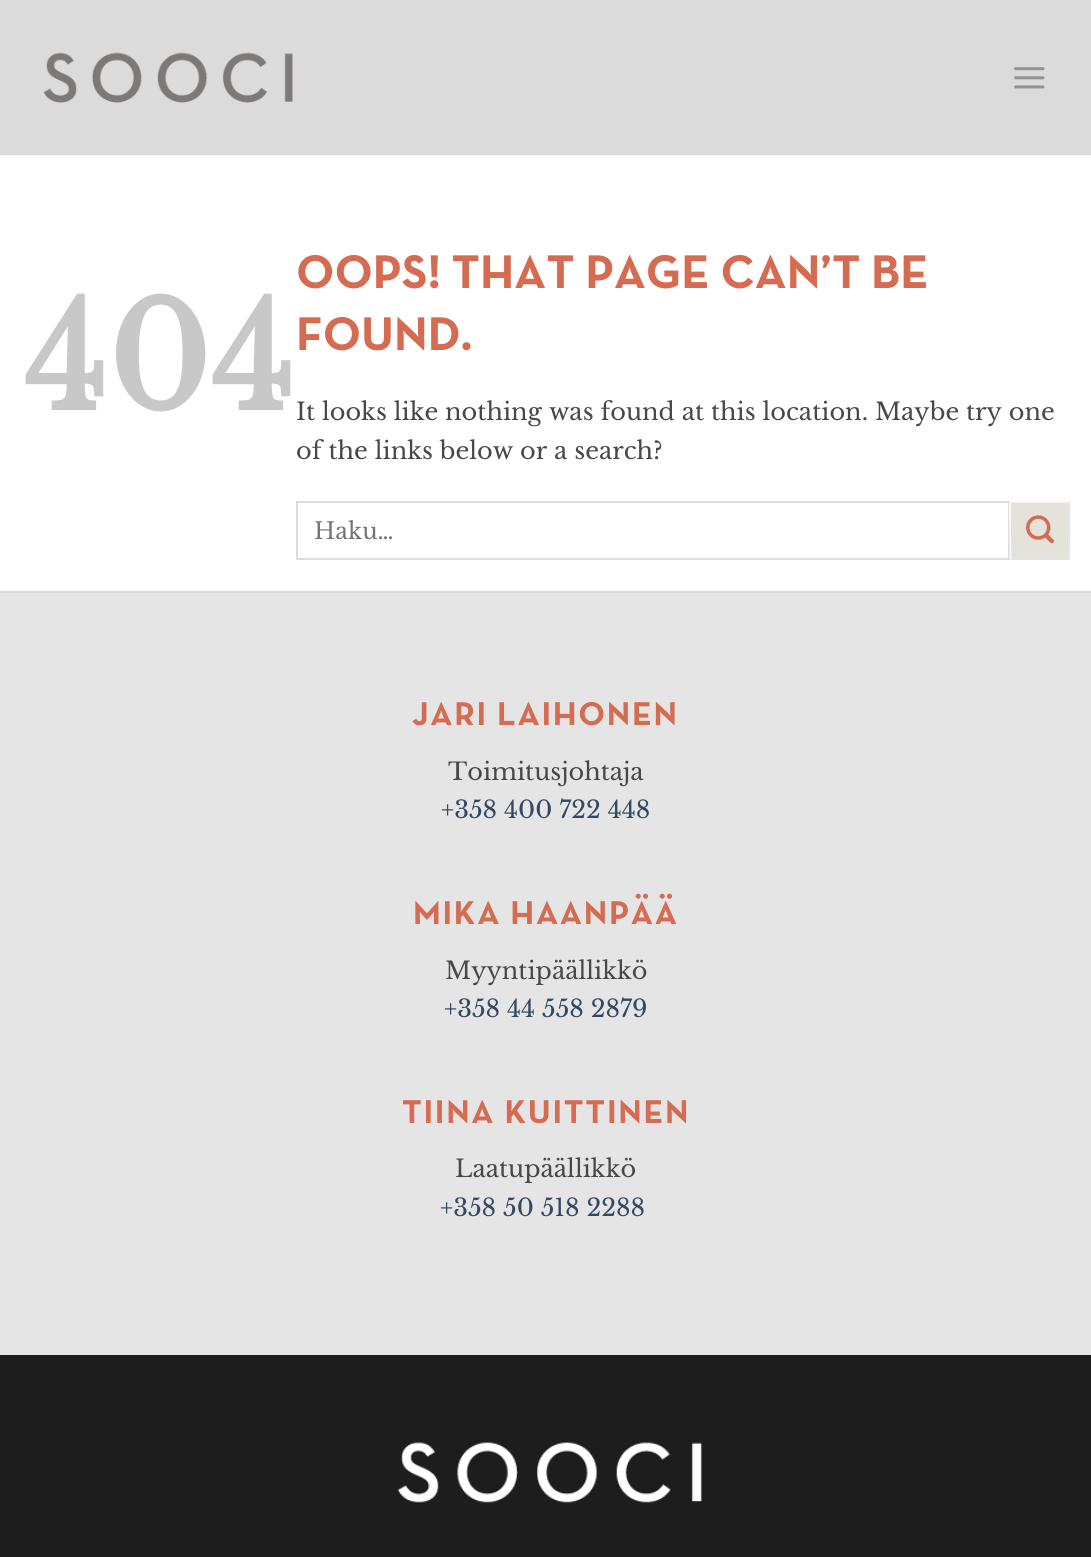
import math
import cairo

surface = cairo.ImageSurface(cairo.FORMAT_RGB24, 1091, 1557)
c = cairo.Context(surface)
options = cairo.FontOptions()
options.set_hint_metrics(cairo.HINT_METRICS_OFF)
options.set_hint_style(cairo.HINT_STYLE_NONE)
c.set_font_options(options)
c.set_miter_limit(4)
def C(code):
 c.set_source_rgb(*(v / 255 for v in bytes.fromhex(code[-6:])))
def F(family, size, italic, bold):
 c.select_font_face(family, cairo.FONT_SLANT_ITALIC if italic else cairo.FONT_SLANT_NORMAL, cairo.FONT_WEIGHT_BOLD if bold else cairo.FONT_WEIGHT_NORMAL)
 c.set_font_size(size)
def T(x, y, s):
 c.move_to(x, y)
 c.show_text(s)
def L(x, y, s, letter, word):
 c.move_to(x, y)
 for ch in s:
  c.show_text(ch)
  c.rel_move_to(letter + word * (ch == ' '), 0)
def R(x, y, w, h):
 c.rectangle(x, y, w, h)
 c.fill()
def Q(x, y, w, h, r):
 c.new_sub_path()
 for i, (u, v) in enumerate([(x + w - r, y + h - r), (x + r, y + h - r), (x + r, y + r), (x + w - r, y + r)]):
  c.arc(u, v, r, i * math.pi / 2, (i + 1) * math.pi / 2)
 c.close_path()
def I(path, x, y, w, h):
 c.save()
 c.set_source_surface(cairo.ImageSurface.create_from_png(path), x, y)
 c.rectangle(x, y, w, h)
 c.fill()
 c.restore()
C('ffffff')
c.paint()
C('dbdbdb')
R(0,0,1091,155)
I('1.png',43,52,250,51)
I('2.png',1014,67,31,22)
F('Libre Baskerville',144,0,1)
C('c8c8c8')
T(23,410,'404')
F('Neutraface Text',48,0,1)
C('d56b51')
T(296,288,'OOPS! THAT PAGE CAN’T BE')
T(296,350,'FOUND.')
F('Libre Baskerville',24,0,0)
C('484847')
T(296,420,'It looks like nothing was found at this location. Maybe try one')
T(296,459,'of the links below or a search?')
c.rectangle(297,502,712,57)
C('dddddd')
c.stroke()
F('Libre Baskerville',23,0,0)
C('757575')
T(314,539,'Haku…')
C('e5e2db')
Q(1010,501,60,59,1.5)
c.fill()
c.new_path()
c.move_to(1068.5,502)
c.line_to(1069,549)
c.curve_to(1069,561.5,1071.5,559,1058.5,559)
c.line_to(1010.5,558.5)
C('e6e6e6')
c.set_line_width(1.5)
c.stroke()
c.new_path()
c.move_to(1010.5,558.5)
c.line_to(1010,512)
c.curve_to(1010,499,1007.5,502,1020.5,502)
c.line_to(1068.5,502)
C('ffffff')
c.stroke()
I('3.png',1026,515,28,29)
C('e5e5e5')
R(0,593,1091,762)
C('dadada')
R(0,591,1091,2)
F('Neutraface Text',33.5,0,1)
C('d56b51')
L(412,725,'JARI LAIHONEN',1.7,0)
F('Libre Baskerville',24,0,0)
C('484847')
T(448,780,'Toimitusjohtaja')
C('334862')
T(441,818,'+358 400 722 448')
F('Neutraface Text',33.5,0,1)
C('d56b51')
L(413,924,'MIKA HAANPÄÄ',1.7,0)
F('Libre Baskerville',24,0,0)
C('484847')
T(445,979,'Myyntipäällikkö')
C('334862')
T(444,1017,'+358 44 558 2879')
F('Neutraface Text',33.5,0,1)
C('d56b51')
L(402,1123,'TIINA KUITTINEN',1.7,0)
F('Libre Baskerville',24,0,0)
C('484847')
T(455,1177,'Laatupäällikkö')
C('334862')
T(440,1216,'+358 50 518 2288')
C('1d1d1e')
R(0,1355,1091,202)
I('4.png',397,1442,306,61)
surface.write_to_png('o.png')
